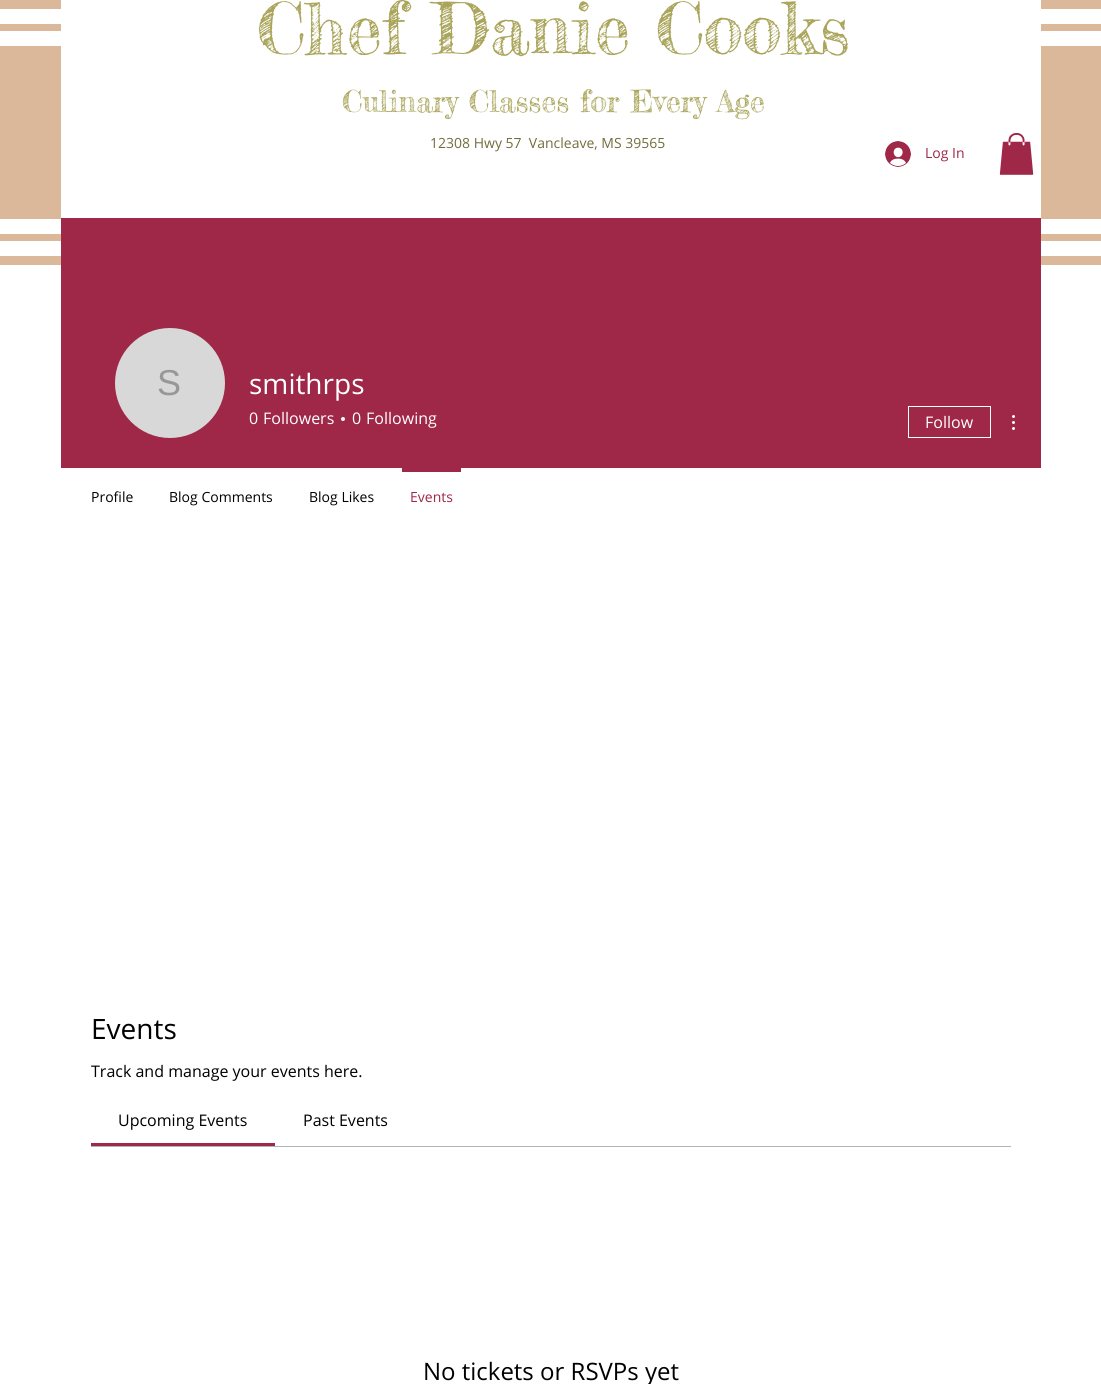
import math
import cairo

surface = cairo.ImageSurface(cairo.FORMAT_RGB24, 1101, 1384)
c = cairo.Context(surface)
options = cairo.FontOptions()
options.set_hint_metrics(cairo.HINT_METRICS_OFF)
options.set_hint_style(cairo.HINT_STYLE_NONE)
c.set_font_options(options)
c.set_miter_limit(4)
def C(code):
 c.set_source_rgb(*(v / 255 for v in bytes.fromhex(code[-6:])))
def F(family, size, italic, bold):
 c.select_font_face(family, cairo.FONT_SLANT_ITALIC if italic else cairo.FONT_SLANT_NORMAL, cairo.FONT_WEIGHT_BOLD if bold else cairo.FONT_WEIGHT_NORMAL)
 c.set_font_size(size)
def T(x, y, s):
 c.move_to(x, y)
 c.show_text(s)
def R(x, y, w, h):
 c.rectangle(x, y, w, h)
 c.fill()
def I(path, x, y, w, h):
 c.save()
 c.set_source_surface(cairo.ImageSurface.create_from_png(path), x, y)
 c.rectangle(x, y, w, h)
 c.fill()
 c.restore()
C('ffffff')
c.paint()
C('dbb89a')
R(0,0,1101,265)
C('ffffff')
R(0,9,1101,15)
R(0,241,1101,15)
R(0,31,1101,15)
R(0,219,1101,15)
R(61,0,980,218)
F('Fredericka the Great',71,0,0)
C('aaa55b')
T(257,54,'Chef Danie Cooks')
F('Fredericka the Great',30,0,0)
T(342,112,'Culinary Classes for Every Age')
F('Open Sans',14,0,0)
C('716e3d')
T(430,148,'12308 Hwy 57  Vancleave, MS 39565')
I('1.png',999,133,35,42)
I('2.png',885,141,26,26)
C('9f2747')
T(925,158,'Log In')
R(61,218,980,250)
C('d8d8d8')
c.new_path()
c.arc(170,383,55,0,2 * math.pi)
c.fill()
F('Liberation Sans',36,0,0)
C('979797')
T(157,395,'S')
F('Open Sans',28,0,0)
C('ffffff')
T(249,394,'smithrps')
F('Open Sans',16,0,0)
T(249,424,'0')
T(263,424,'Followers')
c.new_path()
c.arc(343,419,2,0,2 * math.pi)
c.fill()
T(352,424,'0')
T(366,424,'Following')
c.rectangle(908.5,406.5,82,31)
c.set_line_width(1)
c.stroke()
T(925,428,'Follow')
I('3.png',1012,415,3,15)
F('Open Sans',14,0,0)
C('000000')
T(91,502,'Profile')
T(169,502,'Blog Comments')
T(309,502,'Blog Likes')
C('9f2747')
R(402,468,59,4)
T(410,502,'Events')
F('Open Sans',28,0,0)
C('000000')
T(91,1039,'Events')
F('Open Sans',16,0,0)
T(91,1077,'Track and manage your events here.')
C('9f2747')
R(91,1143,184,3)
C('000000')
T(118,1126,'Upcoming Events')
T(303,1126,'Past Events')
C('b3b3b3')
R(91,1146,920,1)
F('Open Sans',24,0,0)
C('000000')
T(423,1380,'No tickets or RSVPs yet')
surface.write_to_png('o.png')
